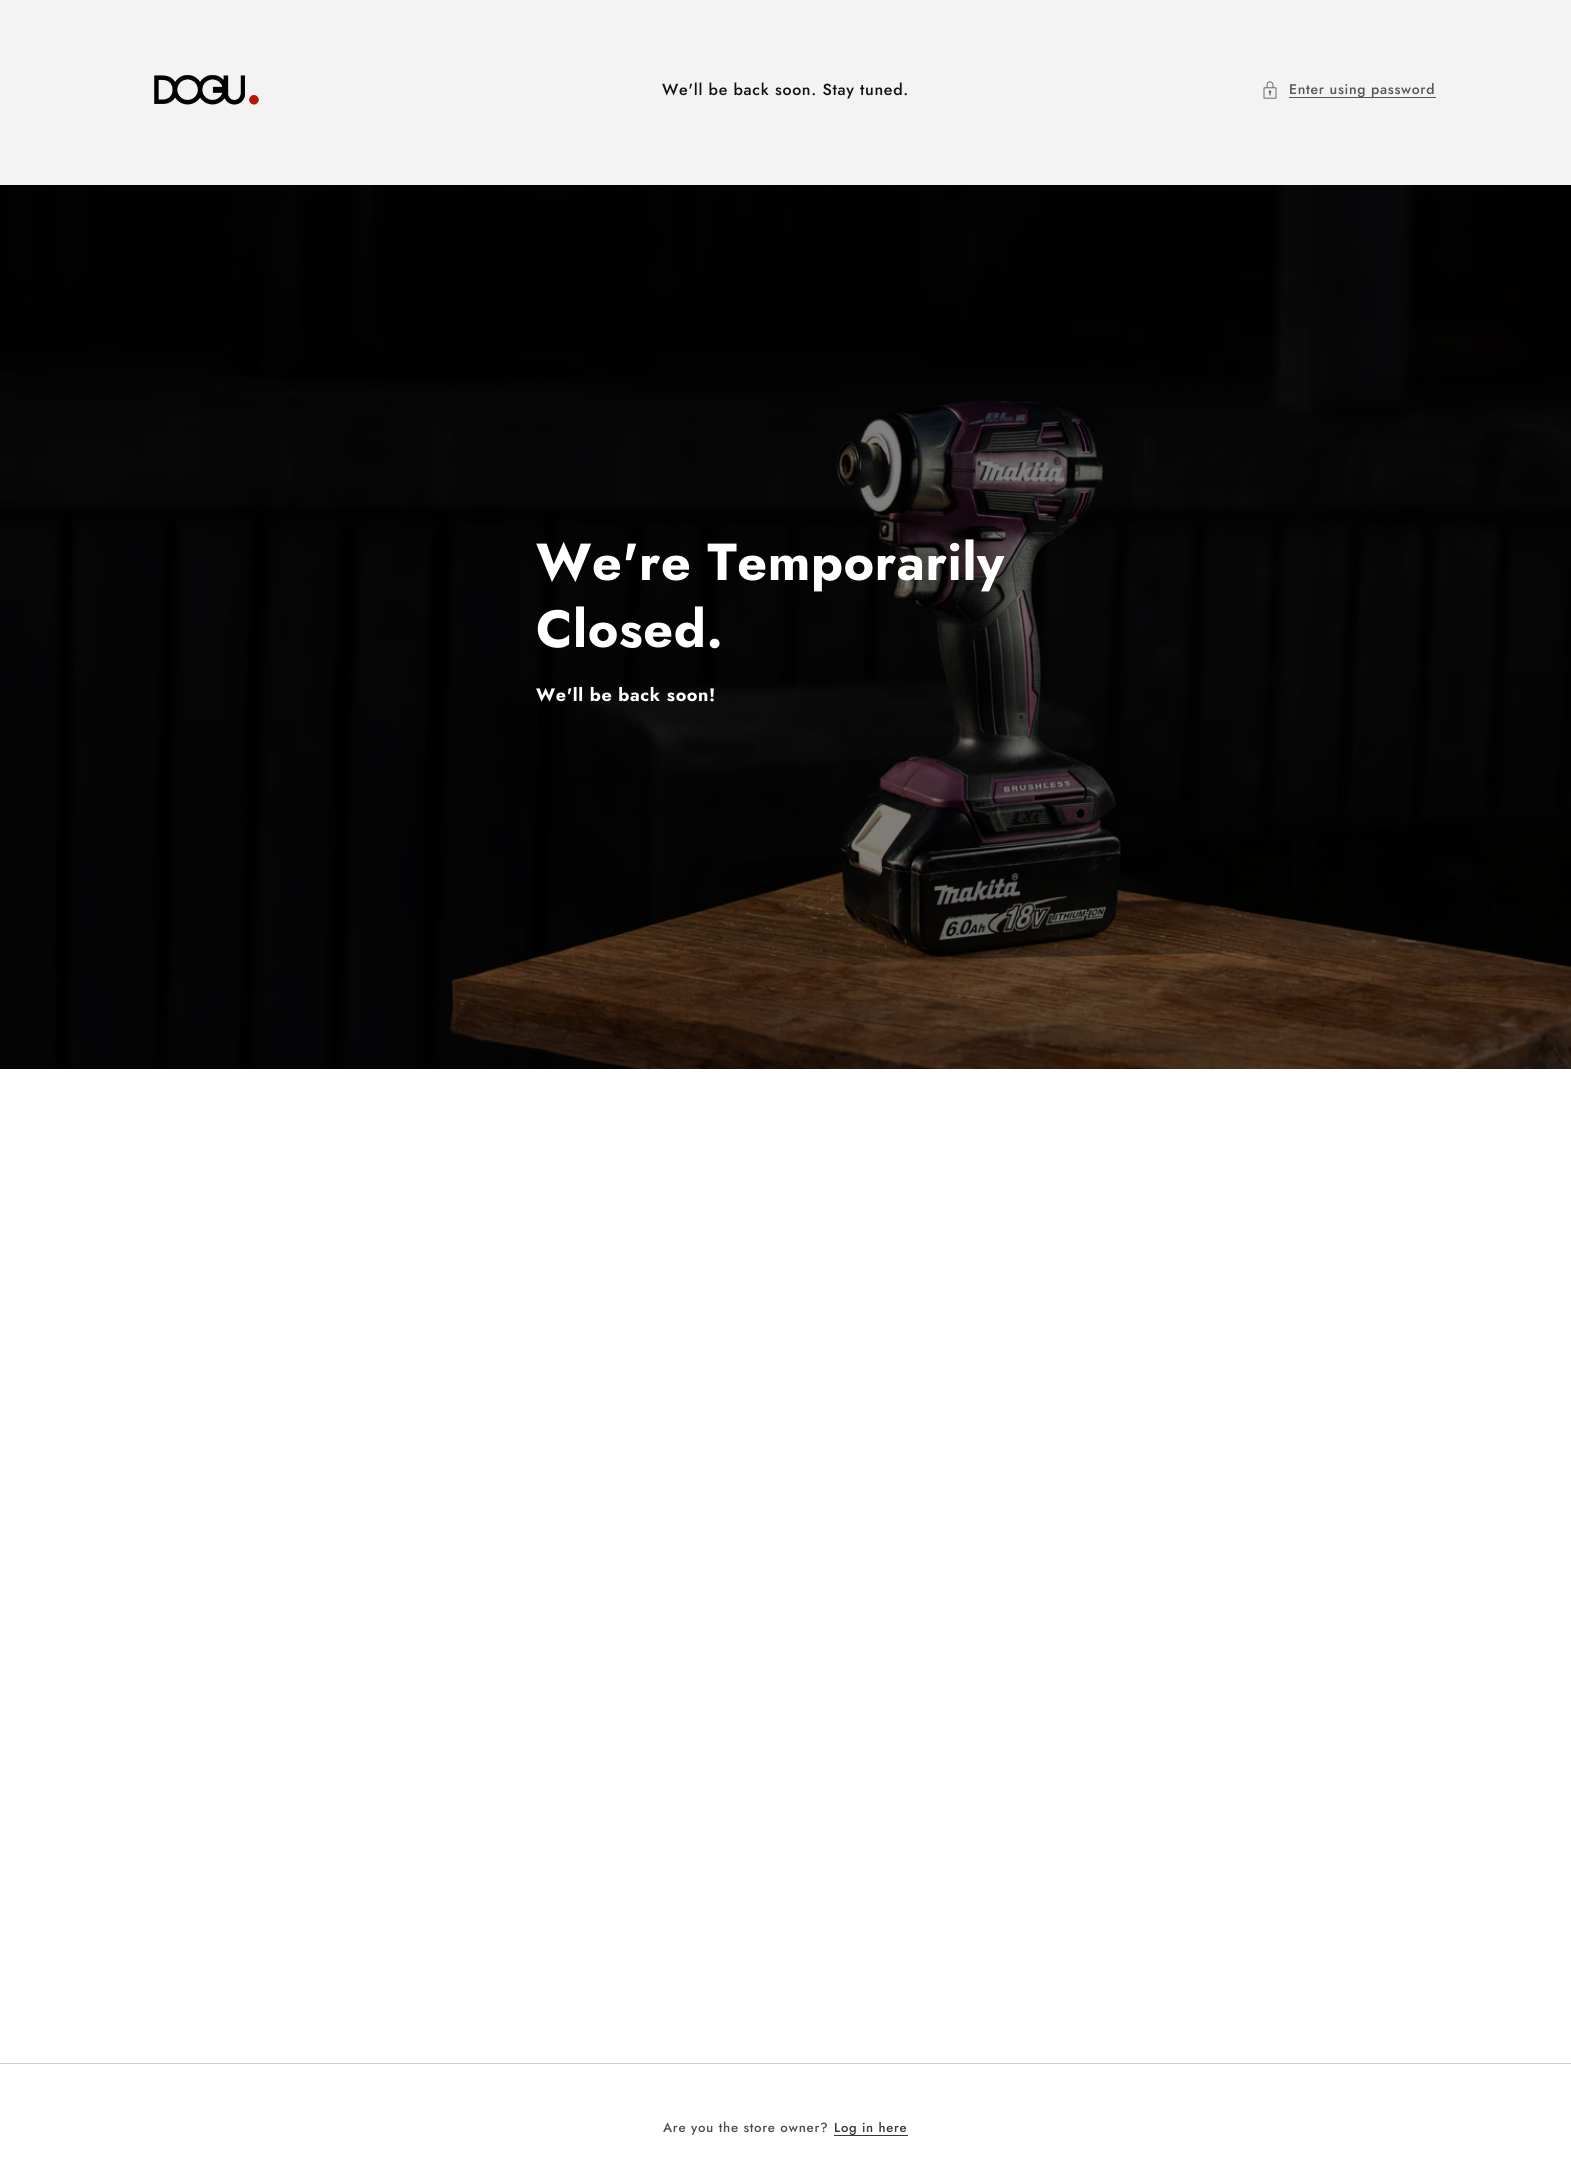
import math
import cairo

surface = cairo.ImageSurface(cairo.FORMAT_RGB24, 1571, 2180)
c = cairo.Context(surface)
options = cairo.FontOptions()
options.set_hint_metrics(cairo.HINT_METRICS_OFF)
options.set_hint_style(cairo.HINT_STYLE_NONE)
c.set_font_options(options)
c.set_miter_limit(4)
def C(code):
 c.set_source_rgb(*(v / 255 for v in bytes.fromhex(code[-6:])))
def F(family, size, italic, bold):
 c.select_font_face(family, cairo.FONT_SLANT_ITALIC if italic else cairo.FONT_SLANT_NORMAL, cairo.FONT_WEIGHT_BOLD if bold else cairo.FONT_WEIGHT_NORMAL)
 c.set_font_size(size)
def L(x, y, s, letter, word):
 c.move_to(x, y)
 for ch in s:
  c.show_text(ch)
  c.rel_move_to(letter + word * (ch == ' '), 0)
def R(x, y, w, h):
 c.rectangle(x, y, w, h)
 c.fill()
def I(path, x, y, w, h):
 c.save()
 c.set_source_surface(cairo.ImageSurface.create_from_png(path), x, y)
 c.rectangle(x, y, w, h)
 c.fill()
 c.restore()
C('ffffff')
c.paint()
C('f3f3f3')
R(0,0,1571,185)
I('1.png',154,75,105,30)
F('Jost Medium',16,0,0)
C('121212')
L(662,95,'We\'ll be back soon. Stay tuned.',.7,0)
I('2.png',1263,81,14,18)
C('565656')
R(1289,97,147,1)
F('Jost Medium',14,0,0)
C('555555')
L(1289,94,'Enter using password',.7,0)
I('3.png',0,185,1571,884)
F('Jost',52,0,1)
C('ffffff')
L(536,580,'We\'re Temporarily',.6,0)
L(536,647,'Closed.',.6,0)
F('Jost',18,0,1)
L(536,701,'We\'ll be back soon!',.6,0)
C('d0d0d0')
R(0,2063,1571,1)
F('Jost Medium',13.25,0,0)
C('4d4d4d')
L(663,2132,'Are you the store owner?',.7,0)
C('363636')
R(834,2135,74,1)
F('Jost Medium',13,0,0)
L(834,2132,'Log in here',.7,0)
surface.write_to_png('o.png')
